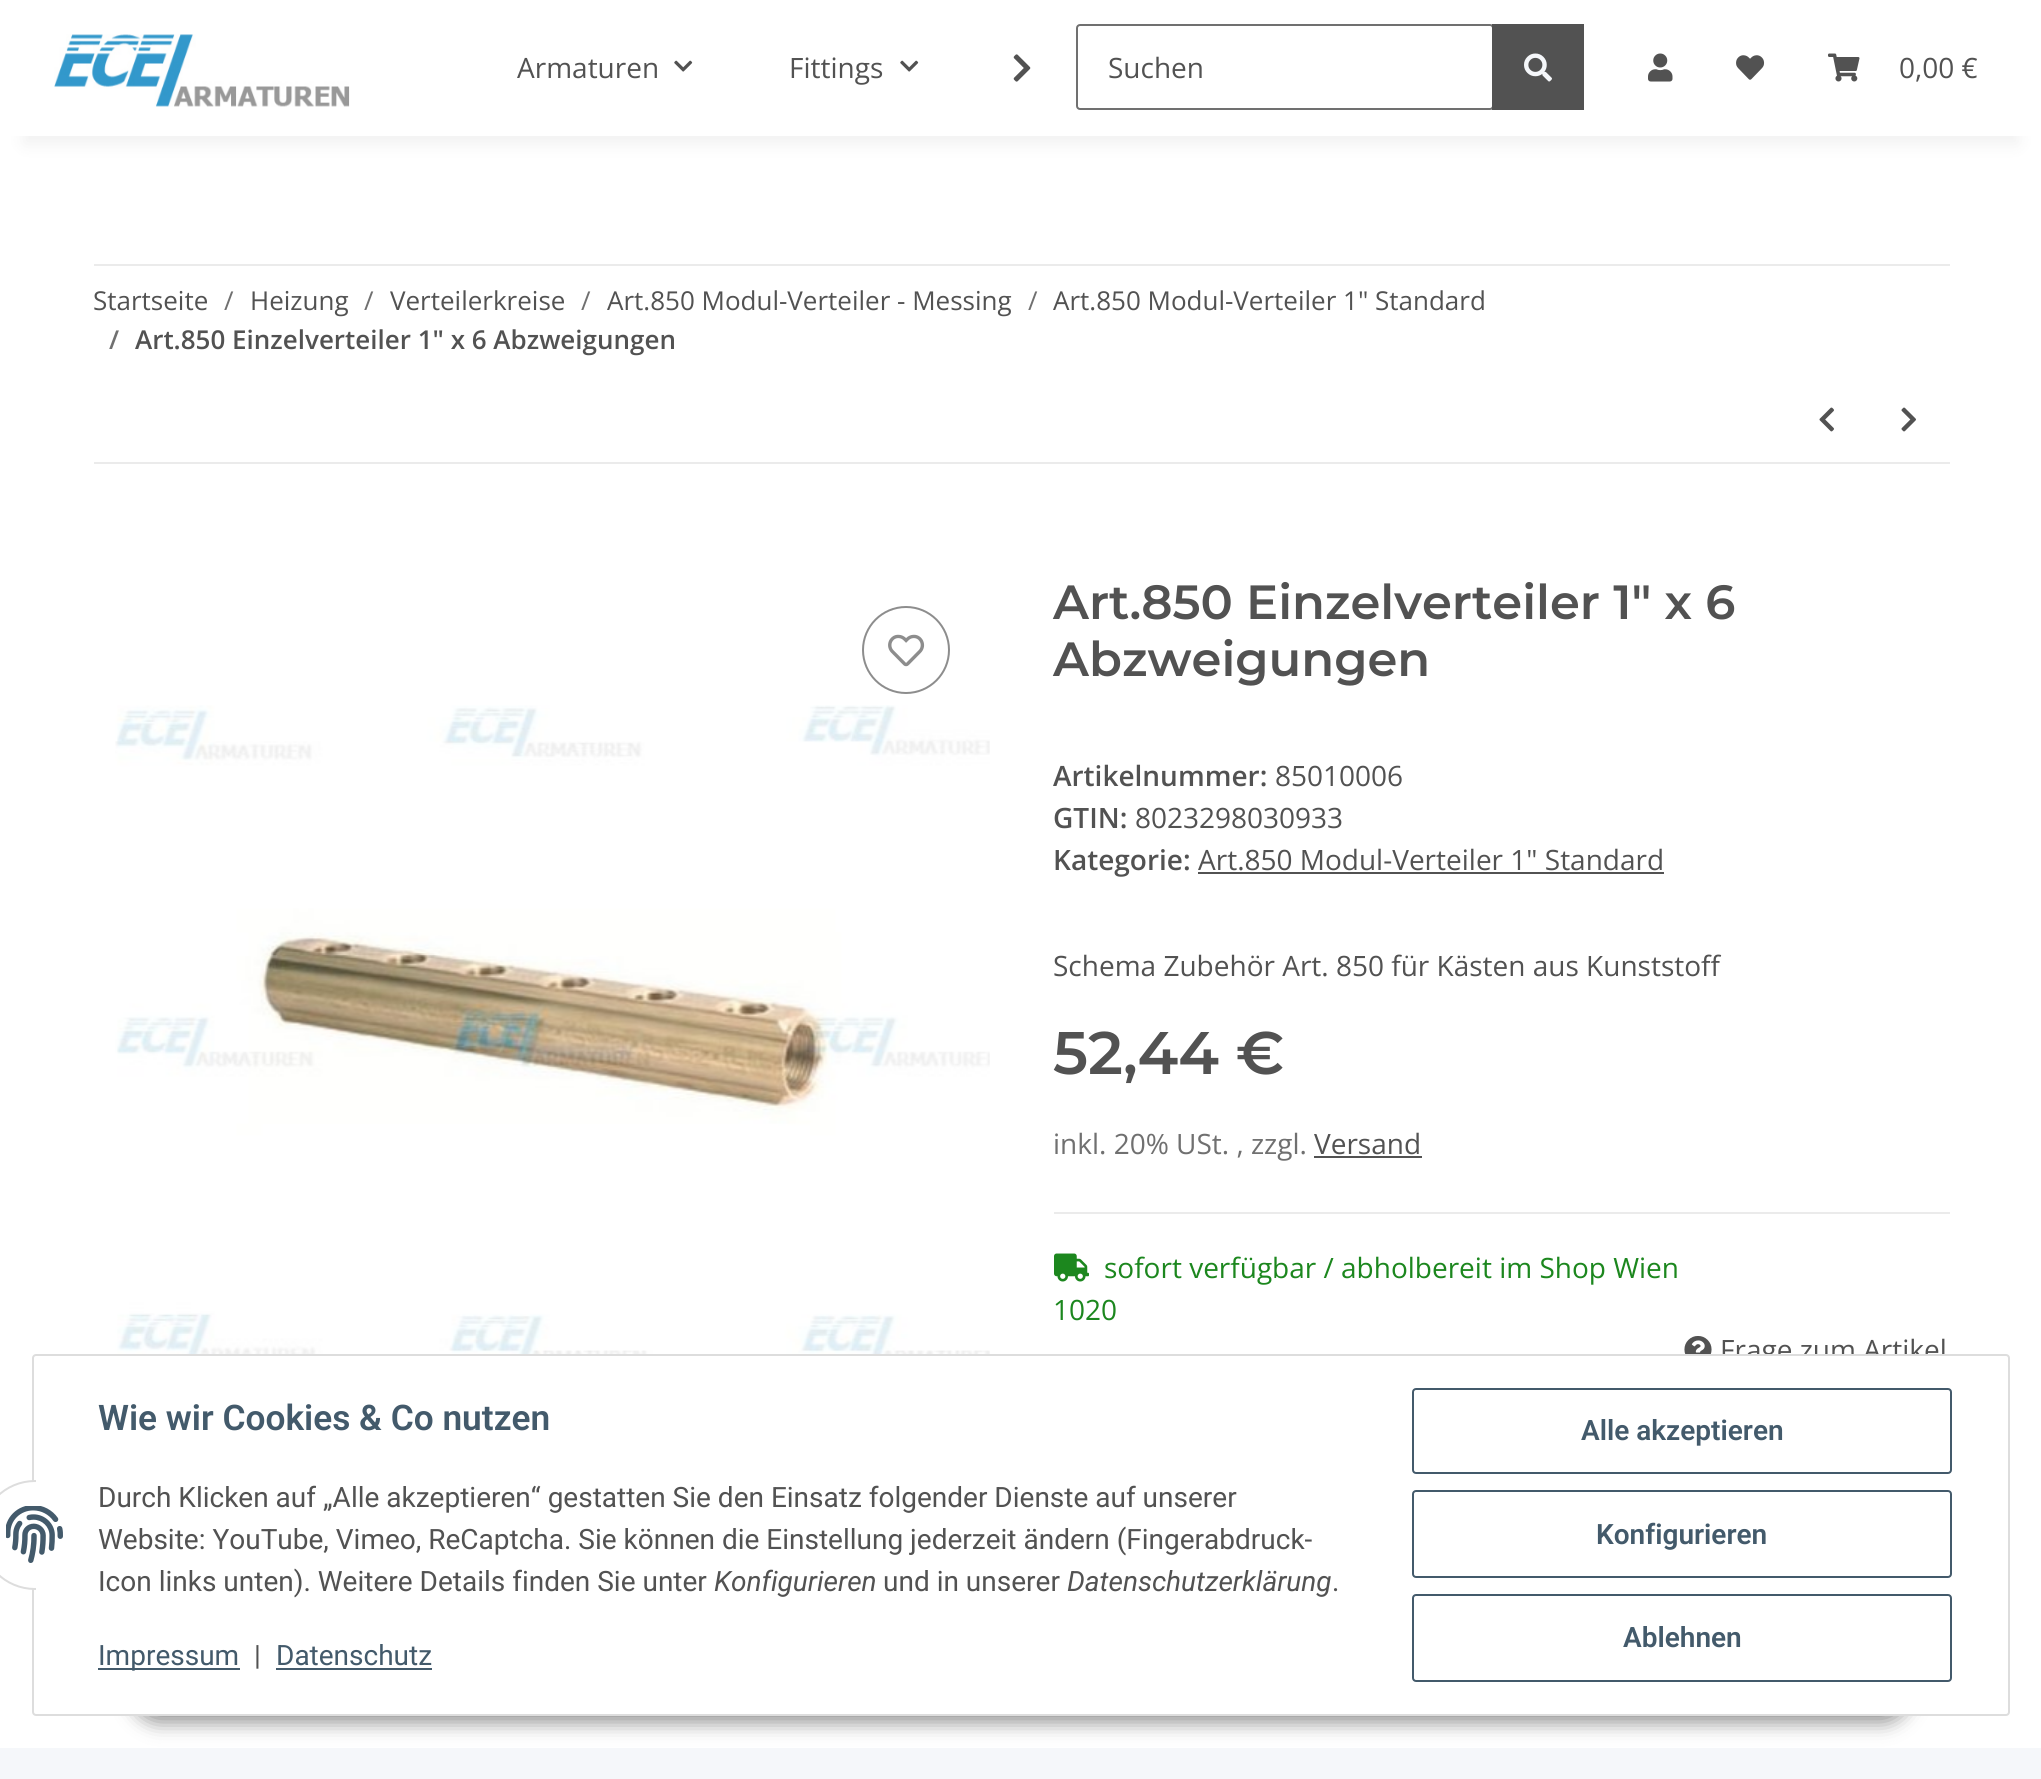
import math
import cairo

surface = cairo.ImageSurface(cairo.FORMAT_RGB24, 2041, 1779)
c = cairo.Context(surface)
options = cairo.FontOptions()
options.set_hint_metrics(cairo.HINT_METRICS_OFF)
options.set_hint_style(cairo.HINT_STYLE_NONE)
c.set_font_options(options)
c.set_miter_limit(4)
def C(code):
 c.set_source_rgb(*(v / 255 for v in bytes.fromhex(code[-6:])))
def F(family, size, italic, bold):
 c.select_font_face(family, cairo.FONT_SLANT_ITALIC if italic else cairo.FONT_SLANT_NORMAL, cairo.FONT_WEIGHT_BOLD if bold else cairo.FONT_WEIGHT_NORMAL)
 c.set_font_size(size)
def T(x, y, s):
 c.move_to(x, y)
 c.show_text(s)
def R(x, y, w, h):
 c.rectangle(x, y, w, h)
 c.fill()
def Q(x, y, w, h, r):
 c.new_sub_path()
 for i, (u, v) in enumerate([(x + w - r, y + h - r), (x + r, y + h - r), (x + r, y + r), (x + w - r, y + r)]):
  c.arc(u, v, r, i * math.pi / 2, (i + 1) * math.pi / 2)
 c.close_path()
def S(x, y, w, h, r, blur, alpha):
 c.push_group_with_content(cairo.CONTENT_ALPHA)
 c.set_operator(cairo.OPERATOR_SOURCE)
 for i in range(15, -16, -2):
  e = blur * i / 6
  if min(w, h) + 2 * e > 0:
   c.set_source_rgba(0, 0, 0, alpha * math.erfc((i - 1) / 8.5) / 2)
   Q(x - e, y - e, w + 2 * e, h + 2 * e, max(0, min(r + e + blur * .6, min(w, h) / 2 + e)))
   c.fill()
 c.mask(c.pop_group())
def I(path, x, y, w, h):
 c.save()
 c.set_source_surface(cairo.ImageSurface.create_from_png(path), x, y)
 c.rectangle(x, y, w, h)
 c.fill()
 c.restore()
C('f5f7fa')
c.paint()
C('ffffff')
R(0,136,2041,1612)
C('000000')
S(24,56,1994,88,0,9,.06)
C('ffffff')
R(0,0,2041,136)
I('1.png',54,34,296,73)
F('Open Sans',28,0,0)
C('525252')
T(517,78,'Armaturen')
I('2.png',674,60,19,12)
T(789,78,'Fittings')
I('2.png',900,60,19,12)
I('3.png',1013,54,18,28)
Q(1077,25,416,84,3)
C('707070')
c.stroke()
C('525252')
T(1108,78,'Suchen')
R(1492,24,92,86)
I('4.png',1524,53,28,29)
I('5.png',1648,53,25,29)
I('6.png',1736,55,29,25)
I('7.png',1828,53,32,29)
T(1899,78,'0,00 €')
C('ebebeb')
R(94,264,1856,2)
R(94,462,1856,2)
F('Open Sans',26,0,0)
C('525252')
T(93,310,'Startseite')
C('707070')
T(224,310,'/')
C('525252')
T(250,310,'Heizung')
C('707070')
T(364,310,'/')
C('525252')
T(390,310,'Verteilerkreise')
C('707070')
T(581,310,'/')
C('525252')
T(607,310,'Art.850 Modul-Verteiler - Messing')
C('707070')
T(1028,310,'/')
C('525252')
T(1053,310,'Art.850 Modul-Verteiler 1" Standard')
F('Open Sans SemiBold',26,0,0)
C('707070')
T(109,349,'/')
C('525252')
T(135,349,'Art.850 Einzelverteiler 1" x 6 Abzweigungen')
I('8.png',1819,407,15,25)
I('9.png',1901,407,15,25)
c.arc(906,650,43,0,2 * math.pi)
C('8d8d8d')
c.stroke()
I('10.png',888,634,37,33)
I('11.png',115,705,875,649)
F('Montserrat SemiBold',48,0,0)
C('525252')
T(1053,619,'Art.850 Einzelverteiler 1" x 6')
T(1053,676,'Abzweigungen')
F('Open Sans SemiBold',28,0,0)
T(1053,786,'Artikelnummer:')
F('Open Sans',28,0,0)
T(1275,786,'85010006')
F('Open Sans SemiBold',28,0,0)
T(1053,828,'GTIN:')
F('Open Sans',28,0,0)
T(1135,828,'8023298030933')
F('Open Sans SemiBold',28,0,0)
T(1053,870,'Kategorie:')
F('Open Sans',28,0,0)
T(1198,870,'Art.850 Modul-Verteiler 1" Standard')
R(1198,872,466,2)
T(1053,976,'Schema Zubehör Art. 850 für Kästen aus Kunststoff')
F('Montserrat SemiBold',60,0,0)
T(1053,1074,'52,44 €')
F('Open Sans',28,0,0)
C('707070')
T(1053,1154,'inkl. 20% USt. , zzgl.')
C('525252')
T(1314,1154,'Versand')
R(1314,1156,108,2)
C('ebebeb')
R(1054,1212,896,2)
I('12.png',1054,1253,35,29)
C('1c871e')
T(1104,1278,'sofort verfügbar / abholbereit im Shop Wien')
T(1053,1320,'1020')
I('13.png',1684,1336,28,18)
C('525252')
T(1720,1360,'Frage zum Artikel')
C('000000')
S(132,1658,1778,64,32,10,.45)
C('ffffff')
Q(33,1355,1976,360,3)
c.fill_preserve()
C('dddddd')
c.stroke()
C('ffffff')
c.arc(35,1535,54,0,2 * math.pi)
c.fill_preserve()
C('dddddd')
c.stroke()
C('ffffff')
R(36,1480,54,110)
I('14.png',6,1506,57,57)
F('Roboto SemiBold',35.25,0,0)
C('435a6b')
T(98,1430,'Wie wir Cookies & Co nutzen')
F('Roboto',28,0,0)
C('525252')
T(98,1507,'Durch Klicken auf „Alle akzeptieren“ gestatten Sie den Einsatz folgender Dienste auf unserer')
T(98,1549,'Website: YouTube, Vimeo, ReCaptcha. Sie können die Einstellung jederzeit ändern (Fingerabdruck-')
T(98,1591,'Icon links unten). Weitere Details finden Sie unter')
F('Roboto',28,1,0)
T(714,1591,'Konfigurieren')
F('Roboto',28,0,0)
T(883,1591,'und in unserer')
F('Roboto',28,1,0)
T(1067,1591,'Datenschutzerklärung')
F('Roboto',28,0,0)
T(1332,1591,'.')
C('435a6b')
R(98,1668,142,2)
T(98,1665,'Impressum')
C('525252')
T(254,1665,'|')
C('435a6b')
T(276,1665,'Datenschutz')
R(276,1668,156,2)
Q(1413,1389,538,84,3)
c.stroke()
F('Roboto SemiBold',28,0,0)
T(1581,1440,'Alle akzeptieren')
Q(1413,1491,538,86,3)
c.stroke()
T(1596,1544,'Konfigurieren')
Q(1413,1595,538,86,3)
c.stroke()
T(1623,1647,'Ablehnen')
surface.write_to_png('o.png')
